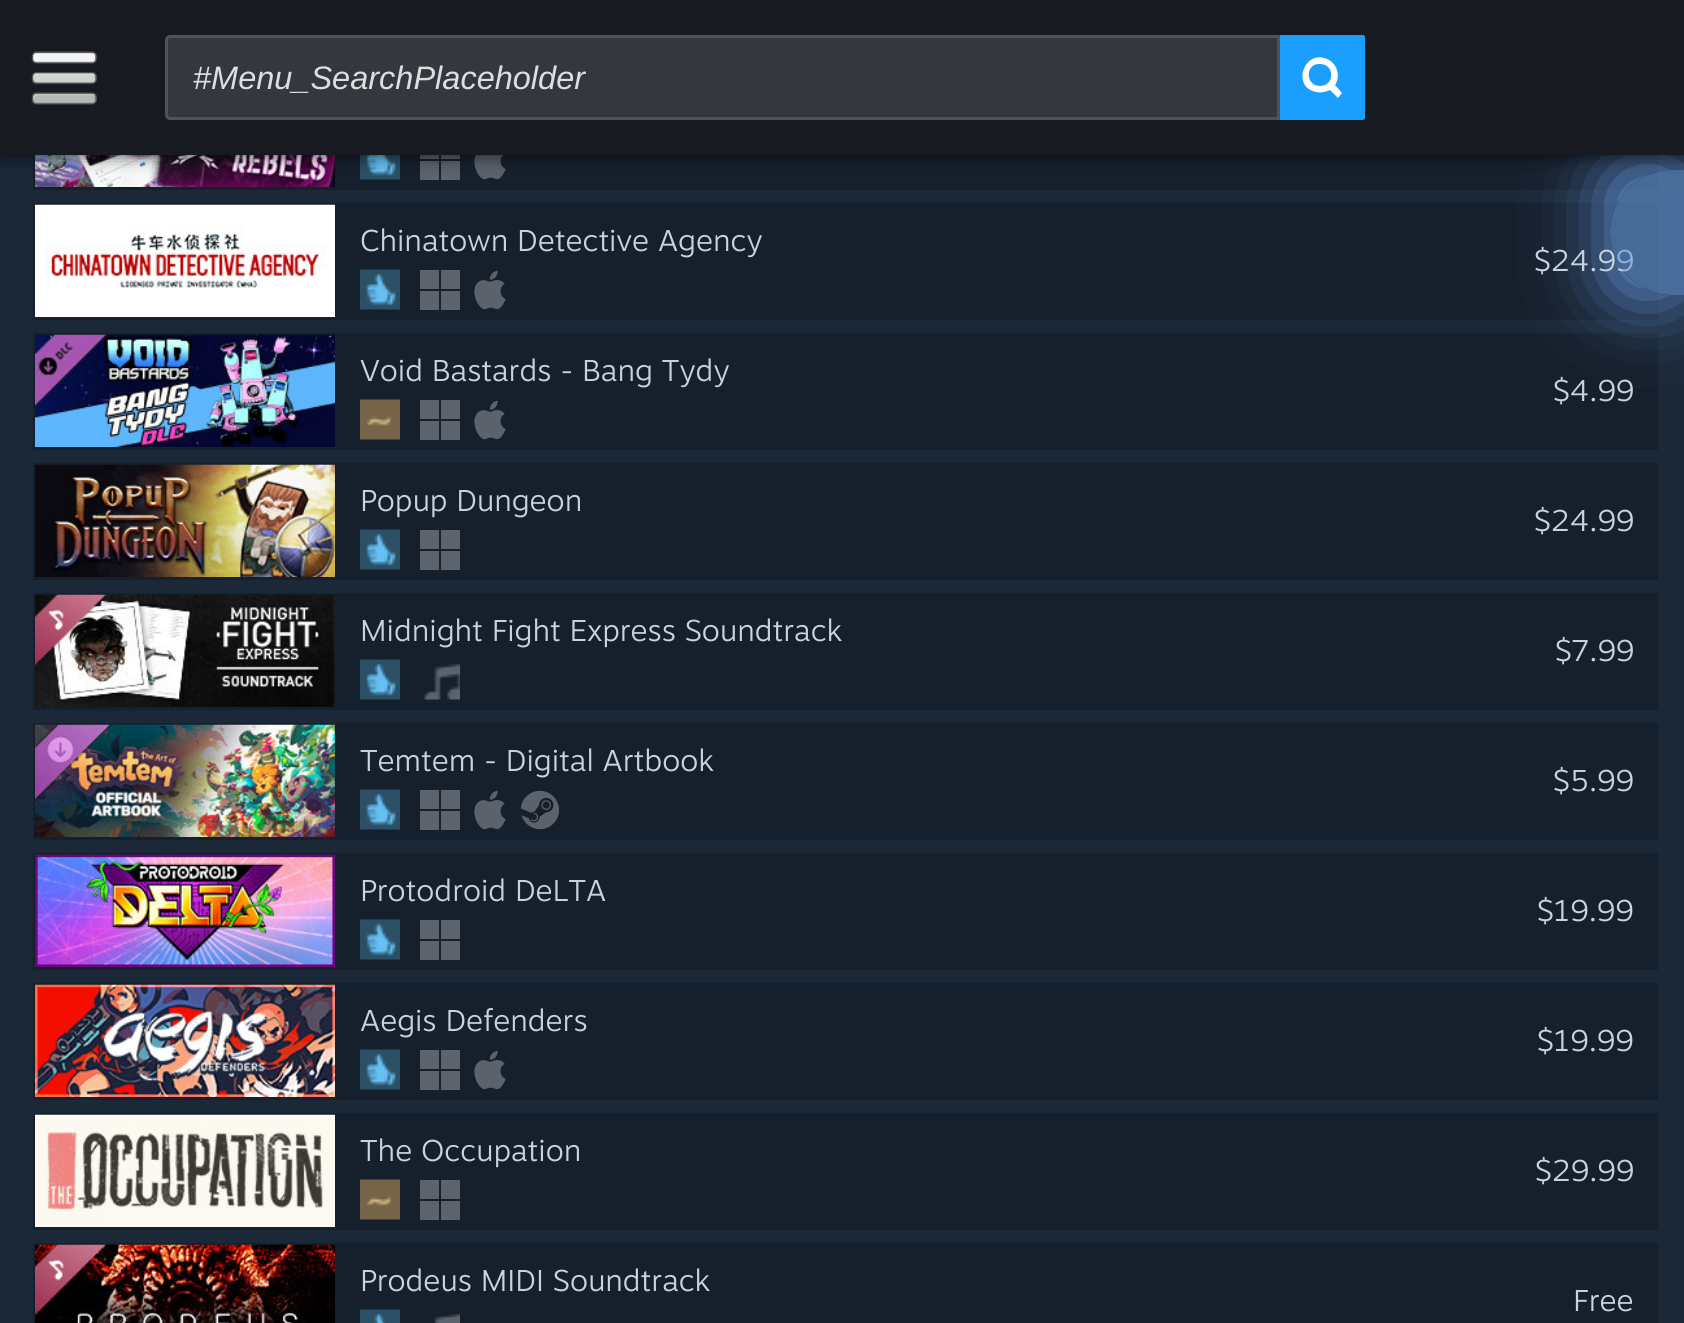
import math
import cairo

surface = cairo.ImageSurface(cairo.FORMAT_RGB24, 1684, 1323)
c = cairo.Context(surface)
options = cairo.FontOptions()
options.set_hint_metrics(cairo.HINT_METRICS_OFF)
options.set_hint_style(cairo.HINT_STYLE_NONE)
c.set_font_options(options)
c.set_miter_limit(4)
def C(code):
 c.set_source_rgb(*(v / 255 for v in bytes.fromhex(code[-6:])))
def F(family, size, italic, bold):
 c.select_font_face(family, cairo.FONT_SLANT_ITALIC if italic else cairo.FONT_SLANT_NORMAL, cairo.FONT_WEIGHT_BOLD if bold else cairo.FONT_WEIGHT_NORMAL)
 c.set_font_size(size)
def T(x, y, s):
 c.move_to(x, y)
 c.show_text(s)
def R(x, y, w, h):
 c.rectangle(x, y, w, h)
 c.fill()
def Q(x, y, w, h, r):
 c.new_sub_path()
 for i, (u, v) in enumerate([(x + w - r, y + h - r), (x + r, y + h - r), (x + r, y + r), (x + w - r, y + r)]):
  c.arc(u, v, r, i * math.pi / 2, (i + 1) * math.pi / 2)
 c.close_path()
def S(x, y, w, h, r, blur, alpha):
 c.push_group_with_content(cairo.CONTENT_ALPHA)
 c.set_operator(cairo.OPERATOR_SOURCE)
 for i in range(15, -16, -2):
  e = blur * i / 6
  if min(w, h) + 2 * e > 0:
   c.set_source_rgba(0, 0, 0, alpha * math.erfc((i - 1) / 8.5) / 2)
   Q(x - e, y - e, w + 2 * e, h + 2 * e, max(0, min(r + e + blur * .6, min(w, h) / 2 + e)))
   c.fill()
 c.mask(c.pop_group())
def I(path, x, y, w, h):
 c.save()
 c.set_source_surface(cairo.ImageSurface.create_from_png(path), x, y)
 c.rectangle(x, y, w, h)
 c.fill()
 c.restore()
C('1b2838')
c.paint()
C('16202d')
R(33,155,1625,35)
R(33,203,1625,117)
R(33,333,1625,117)
c.save()
c.set_fill_rule(cairo.FILL_RULE_EVEN_ODD)
c.new_path()
c.move_to(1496,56)
c.line_to(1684,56)
c.line_to(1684,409)
c.line_to(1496,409)
c.close_path()
c.move_to(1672.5,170)
c.line_to(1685,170)
c.line_to(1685,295)
c.line_to(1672.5,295)
c.curve_to(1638,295,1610,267,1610,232.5)
c.curve_to(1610,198,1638,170,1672.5,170)
c.close_path()
c.clip()
C('6799e2')
S(1610,170,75,125,63,37.5,1)
c.restore()
F('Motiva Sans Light',30,0,0)
C('c6d4df')
T(1534,271,'$24.99')
c.set_source_rgba(0.408,0.616,0.867,0.6)
c.new_path()
c.move_to(1672.5,170)
c.line_to(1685,170)
c.line_to(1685,295)
c.line_to(1672.5,295)
c.curve_to(1638,295,1610,267,1610,232.5)
c.curve_to(1610,198,1638,170,1672.5,170)
c.close_path()
c.fill()
I('2.png',35,155,300,32)
I('3.png',360,155,40,25)
C('5c636c')
R(420,155,19,4)
R(441,155,19,4)
R(420,161,19,19)
R(441,161,19,19)
I('4.png',474,155,32,25)
C('000000')
S(0,0,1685,155,0,9,.75)
C('171a21')
R(0,0,1684,155)
I('1.png',31,51,66,54)
C('34373d')
Q(165,35,1200,85,5)
c.fill()
c.new_path()
c.move_to(170,36.5)
c.line_to(1278.5,36.5)
c.line_to(1278.5,118.5)
c.line_to(170,118.5)
c.curve_to(168,118.5,166.5,117,166.5,115)
c.line_to(166.5,40)
c.curve_to(166.5,38,168,36.5,170,36.5)
c.close_path()
c.set_source_rgba(1,1,1,0.14)
c.set_line_width(3)
c.stroke()
F('Liberation Sans',32.5,1,0)
C('dcdedf')
T(193,89,'#Menu_SearchPlaceholder')
C('1a9fff')
c.new_path()
c.move_to(1280,35)
c.line_to(1362.5,35)
c.curve_to(1364,35,1365,36,1365,37.5)
c.line_to(1365,117.5)
c.curve_to(1365,119,1364,120,1362.5,120)
c.line_to(1280,120)
c.close_path()
c.fill()
C('ffffff')
c.new_path()
c.move_to(1335,85)
c.curve_to(1341,76,1337,63,1327,59)
c.curve_to(1304,49,1291,87,1316,92)
c.curve_to(1321,93,1326,92,1330,90)
c.line_to(1338,98)
c.line_to(1342,93)
c.close_path()
c.move_to(1320,86)
c.curve_to(1305,86,1305,63,1320,64)
c.curve_to(1335,64,1335,86,1320,86)
c.close_path()
c.fill()
I('5.png',35,204,300,113)
F('Motiva Sans Light',30,0,0)
C('c6d4df')
T(360,251,'Chinatown Detective Agency')
I('6.png',360,269,40,41)
C('5c636c')
R(420,270,19,19)
R(441,270,19,19)
R(420,291,19,19)
R(441,291,19,19)
I('7.png',474,270,32,40)
I('8.png',35,334,300,113)
C('c6d4df')
T(360,381,'Void Bastards - Bang Tydy')
T(1553,401,'$4.99')
I('9.png',360,399,40,41)
C('5c636c')
R(420,400,19,19)
R(441,400,19,19)
R(420,421,19,19)
R(441,421,19,19)
I('7.png',474,400,32,40)
C('16202d')
R(33,463,1625,117)
I('10.png',35,464,300,113)
C('c6d4df')
T(360,511,'Popup Dungeon')
T(1534,531,'$24.99')
I('6.png',360,529,40,41)
C('5c636c')
R(420,530,19,19)
R(441,530,19,19)
R(420,551,19,19)
R(441,551,19,19)
C('16202d')
R(33,593,1625,117)
I('11.png',35,594,300,113)
C('c6d4df')
T(360,641,'Midnight Fight Express Soundtrack')
T(1555,661,'$7.99')
I('6.png',360,659,40,41)
I('12.png',424,664,36,36)
C('16202d')
R(33,723,1625,117)
I('13.png',35,724,300,113)
C('c6d4df')
T(360,771,'Temtem - Digital Artbook')
T(1553,791,'$5.99')
I('6.png',360,789,40,41)
C('5c636c')
R(420,790,19,19)
R(441,790,19,19)
R(420,811,19,19)
R(441,811,19,19)
I('7.png',474,790,32,40)
I('14.png',520,790,39,40)
C('16202d')
R(33,853,1625,117)
I('15.png',35,854,300,113)
C('c6d4df')
T(360,901,'Protodroid DeLTA')
T(1537,921,'$19.99')
I('6.png',360,919,40,41)
C('5c636c')
R(420,920,19,19)
R(441,920,19,19)
R(420,941,19,19)
R(441,941,19,19)
C('16202d')
R(33,983,1625,117)
I('16.png',35,984,300,113)
C('c6d4df')
T(360,1031,'Aegis Defenders')
T(1537,1051,'$19.99')
I('17.png',360,1049,40,41)
C('5c636c')
R(420,1050,19,19)
R(441,1050,19,19)
R(420,1071,19,19)
R(441,1071,19,19)
I('7.png',474,1050,32,40)
C('16202d')
R(33,1113,1625,117)
I('18.png',35,1114,300,113)
C('c6d4df')
T(360,1161,'The Occupation')
T(1535,1181,'$29.99')
I('9.png',360,1179,40,41)
C('5c636c')
R(420,1180,19,19)
R(441,1180,19,19)
R(420,1201,19,19)
R(441,1201,19,19)
C('16202d')
R(33,1243,1625,80)
I('19.png',35,1244,300,79)
C('c6d4df')
T(360,1291,'Prodeus MIDI Soundtrack')
T(1573,1311,'Free')
I('20.png',360,1309,40,14)
I('21.png',434,1314,26,9)
surface.write_to_png('o.png')
